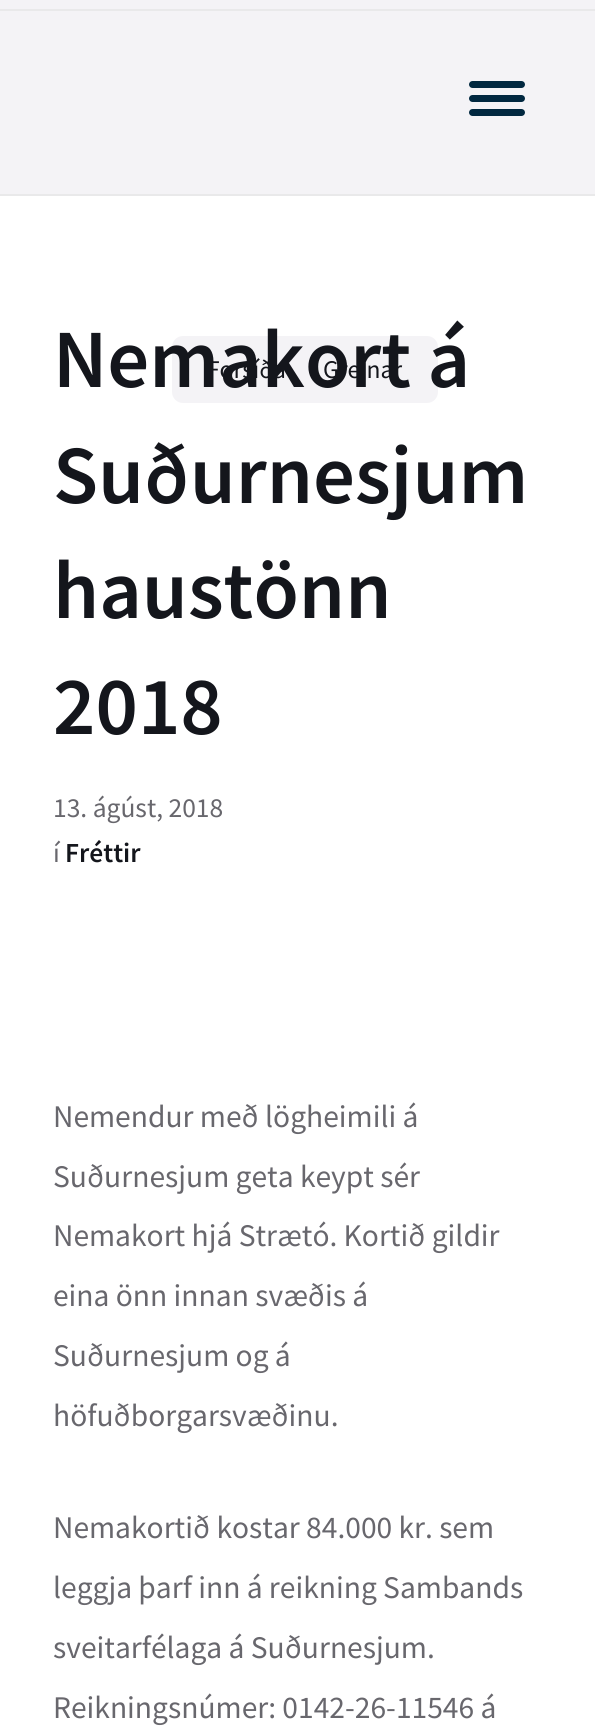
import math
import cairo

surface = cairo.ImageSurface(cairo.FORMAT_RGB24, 595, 1735)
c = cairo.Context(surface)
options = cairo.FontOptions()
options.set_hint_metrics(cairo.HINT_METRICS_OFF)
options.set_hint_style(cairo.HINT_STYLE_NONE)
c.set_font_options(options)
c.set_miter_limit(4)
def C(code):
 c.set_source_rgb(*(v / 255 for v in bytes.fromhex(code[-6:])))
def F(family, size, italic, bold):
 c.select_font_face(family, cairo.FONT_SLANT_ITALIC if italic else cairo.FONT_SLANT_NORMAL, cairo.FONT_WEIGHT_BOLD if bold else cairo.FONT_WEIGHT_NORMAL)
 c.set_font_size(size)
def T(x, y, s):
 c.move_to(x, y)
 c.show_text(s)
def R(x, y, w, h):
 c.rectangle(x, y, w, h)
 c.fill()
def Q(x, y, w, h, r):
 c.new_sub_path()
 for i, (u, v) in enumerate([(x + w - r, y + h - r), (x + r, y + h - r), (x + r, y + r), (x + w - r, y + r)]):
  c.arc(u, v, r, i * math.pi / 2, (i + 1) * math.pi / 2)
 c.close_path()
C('ffffff')
c.paint()
C('e9e9ea')
R(0,194,595,2)
C('f4f3f6')
R(0,0,595,194)
C('e9e9ea')
R(0,9,595,2)
C('012840')
Q(469,81,56,7,3.5)
c.fill()
Q(469,95,56,7,3.5)
c.fill()
Q(469,109,56,7,3.5)
c.fill()
C('f4f3f6')
Q(172,336,266,67,11)
c.fill()
F('Source Sans Pro',25.5,0,0)
C('14161c')
T(207,378,'Forsíða')
T(323,378,'Greinar')
F('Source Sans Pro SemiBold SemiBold',82.75,0,0)
T(53,387,'Nemakort á')
T(53,503,'Suðurnesjum')
T(53,618,'haustönn')
T(53,734,'2018')
F('Source Sans Pro',27.5,0,0)
C('68676d')
T(53,817,'13. ágúst, 2018')
T(53,862,'í')
F('Source Sans Pro SemiBold SemiBold',27.5,0,0)
C('14161c')
T(65,862,'Fréttir')
F('Source Sans Pro',31.5,0,0)
C('68676d')
T(53,1127,'Nemendur með lögheimili á')
T(53,1187,'Suðurnesjum geta keypt sér')
T(53,1246,'Nemakort hjá Strætó. Kortið gildir')
T(53,1306,'eina önn innan svæðis á')
T(53,1366,'Suðurnesjum og á')
T(53,1426,'höfuðborgarsvæðinu.')
T(53,1538,'Nemakortið kostar 84.000 kr. sem')
T(53,1598,'leggja þarf inn á reikning Sambands')
T(53,1658,'sveitarfélaga á Suðurnesjum.')
T(53,1718,'Reikningsnúmer: 0142-26-11546 á')
surface.write_to_png('o.png')
